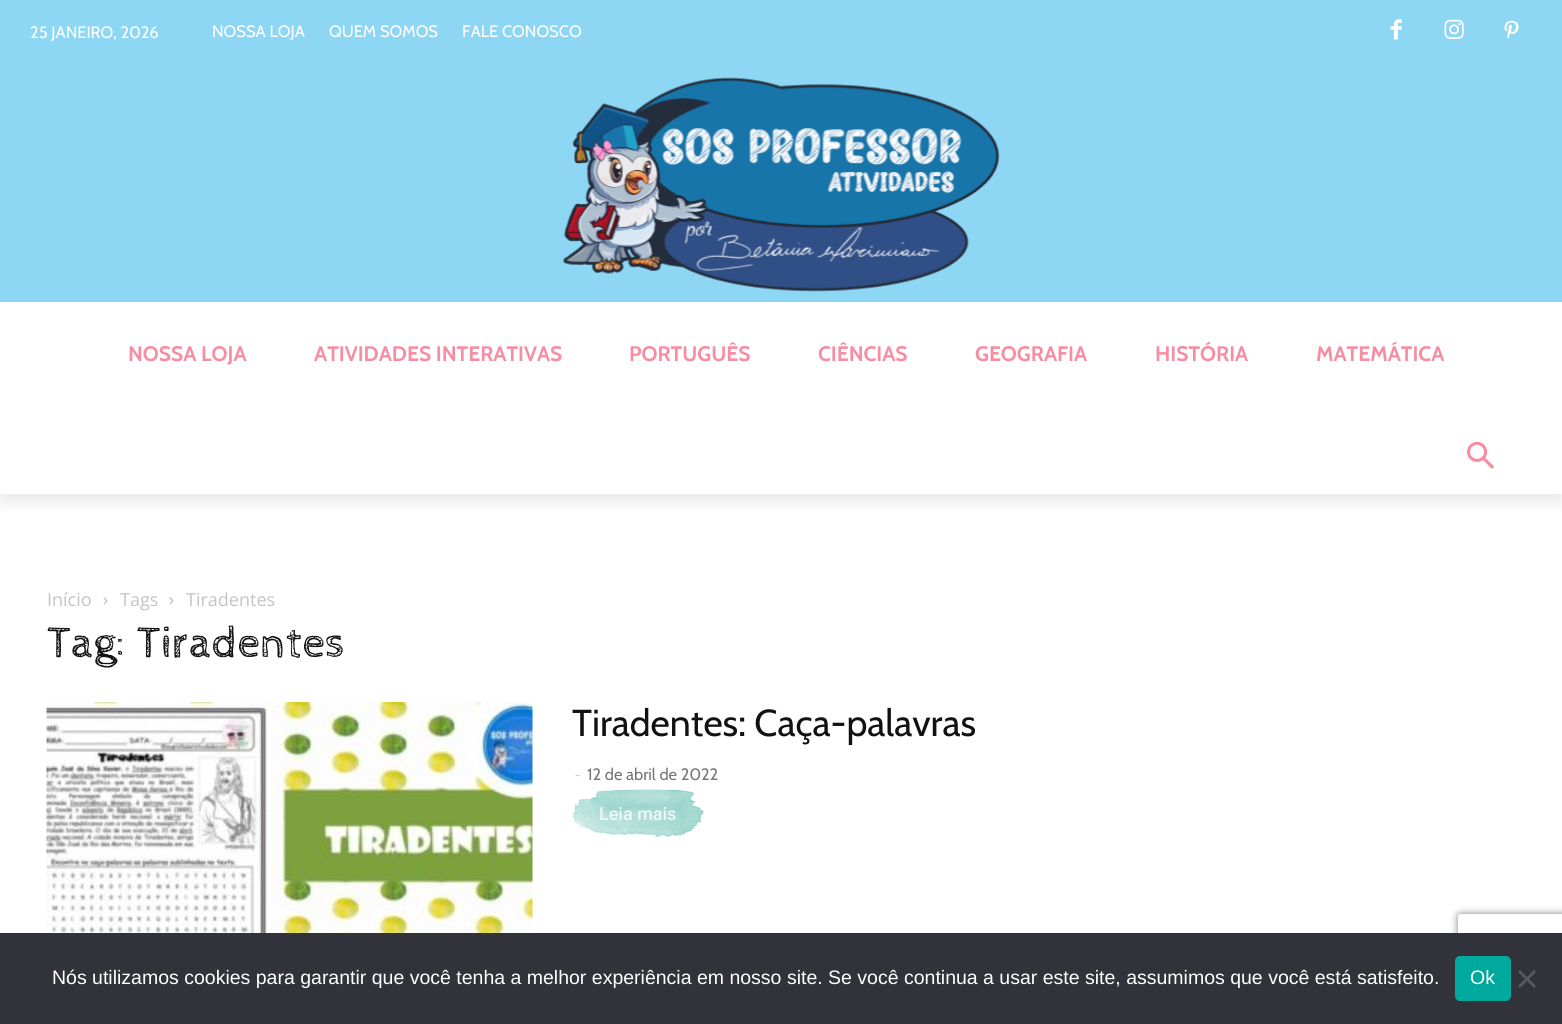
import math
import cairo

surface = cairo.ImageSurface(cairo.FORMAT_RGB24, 1562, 1024)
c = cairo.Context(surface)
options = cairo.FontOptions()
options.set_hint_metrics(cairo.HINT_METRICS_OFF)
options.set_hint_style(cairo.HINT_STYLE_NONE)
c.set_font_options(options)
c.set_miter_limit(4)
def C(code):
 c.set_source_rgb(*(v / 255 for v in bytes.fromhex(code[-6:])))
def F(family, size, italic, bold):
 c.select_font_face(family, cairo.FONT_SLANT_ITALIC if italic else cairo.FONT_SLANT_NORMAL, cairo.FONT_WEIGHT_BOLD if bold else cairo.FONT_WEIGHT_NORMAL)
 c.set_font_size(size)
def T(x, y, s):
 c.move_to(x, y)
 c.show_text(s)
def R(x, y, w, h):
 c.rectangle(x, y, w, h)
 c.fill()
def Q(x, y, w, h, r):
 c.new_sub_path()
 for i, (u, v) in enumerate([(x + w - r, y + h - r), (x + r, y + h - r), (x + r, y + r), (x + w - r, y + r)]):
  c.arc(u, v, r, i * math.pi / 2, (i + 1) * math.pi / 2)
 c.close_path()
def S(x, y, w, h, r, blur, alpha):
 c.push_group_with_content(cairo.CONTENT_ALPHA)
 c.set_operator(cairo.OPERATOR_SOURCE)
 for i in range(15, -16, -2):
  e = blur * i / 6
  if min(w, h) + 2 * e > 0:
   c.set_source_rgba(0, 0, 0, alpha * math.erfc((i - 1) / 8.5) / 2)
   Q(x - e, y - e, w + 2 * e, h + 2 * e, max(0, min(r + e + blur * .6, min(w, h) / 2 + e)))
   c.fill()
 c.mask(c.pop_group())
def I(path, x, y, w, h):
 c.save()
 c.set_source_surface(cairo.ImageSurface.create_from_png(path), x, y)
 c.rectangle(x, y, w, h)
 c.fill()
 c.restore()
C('ffffff')
c.paint()
C('8dd7f5')
R(0,0,1562,302)
F('Cabin',16.5,0,0)
C('ffffff')
T(30,38,'25 JANEIRO, 2026')
T(212,37,'NOSSA LOJA')
T(329,37,'QUEM SOMOS')
T(462,37,'FALE CONOSCO')
I('1.png',1390,19,12,21)
I('2.png',1444,19,20,20)
I('3.png',1504,20,15,19)
I('4.png',563,77,437,215)
c.save()
c.set_fill_rule(cairo.FILL_RULE_EVEN_ODD)
c.new_path()
c.move_to(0,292)
c.line_to(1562,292)
c.line_to(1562,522)
c.line_to(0,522)
c.close_path()
c.move_to(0,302)
c.line_to(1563,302)
c.line_to(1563,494)
c.line_to(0,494)
c.close_path()
c.clip()
C('000000')
S(0,311,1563,192,0,6,.08)
c.restore()
F('Cabin',21,0,1)
C('f68da2')
T(128,361,'NOSSA LOJA')
T(314,361,'ATIVIDADES INTERATIVAS')
T(629,361,'PORTUGUÊS')
T(818,361,'CIÊNCIAS')
T(975,361,'GEOGRAFIA')
T(1155,361,'HISTÓRIA')
T(1316,361,'MATEMÁTICA')
I('5.png',1467,441,27,28)
F('Open Sans',18,0,0)
C('c3c3c3')
T(47,606,'Início')
I('6.png',103,597,5,8)
T(120,606,'Tags')
I('6.png',169,597,5,8)
T(186,606,'Tiradentes')
F('Cabin Sketch',45,0,0)
C('111111')
T(47,657,'Tag: Tiradentes')
I('7.png',46,702,487,231)
F('Cabin',37.5,0,0)
T(572,736,'Tiradentes: Caça-palavras')
F('Open Sans',16.5,0,0)
C('cccccc')
T(575,780,'-')
F('Cabin',16.5,0,0)
C('767676')
T(587,780,'12 de abril de 2022')
I('8.png',572,789,132,48)
F('Roboto Medium',18,0,0)
C('eff8f7')
T(599,820,'Leia mais')
c.save()
c.set_fill_rule(cairo.FILL_RULE_EVEN_ODD)
c.new_path()
c.move_to(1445,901)
c.line_to(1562,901)
c.line_to(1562,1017)
c.line_to(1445,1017)
c.close_path()
c.move_to(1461,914)
c.line_to(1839,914)
c.curve_to(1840.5,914,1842,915.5,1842,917)
c.line_to(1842,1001)
c.curve_to(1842,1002.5,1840.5,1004,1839,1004)
c.line_to(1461,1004)
c.curve_to(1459.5,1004,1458,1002.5,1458,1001)
c.line_to(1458,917)
c.curve_to(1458,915.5,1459.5,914,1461,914)
c.close_path()
c.clip()
C('808080')
S(1458,914,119,90,3,4,1)
c.restore()
C('32323a')
R(0,933,1562,91)
F('Liberation Sans',19.5,0,0)
C('ffffff')
T(52,984,'Nós utilizamos cookies para garantir que você tenha a melhor experiência em nosso site. Se você continua a usar este site, assumimos que você está satisfeito.')
C('00a99d')
Q(1455,956,56,45,5)
c.fill()
C('ffffff')
T(1470,984,'Ok')
C('59595d')
c.new_path()
c.move_to(1534,970)
c.line_to(1536,972)
c.line_to(1520,988)
c.line_to(1518,986)
c.close_path()
c.fill()
c.new_path()
c.move_to(1518,972)
c.line_to(1520,970)
c.line_to(1536,986)
c.line_to(1534,988)
c.close_path()
c.fill()
surface.write_to_png('o.png')
